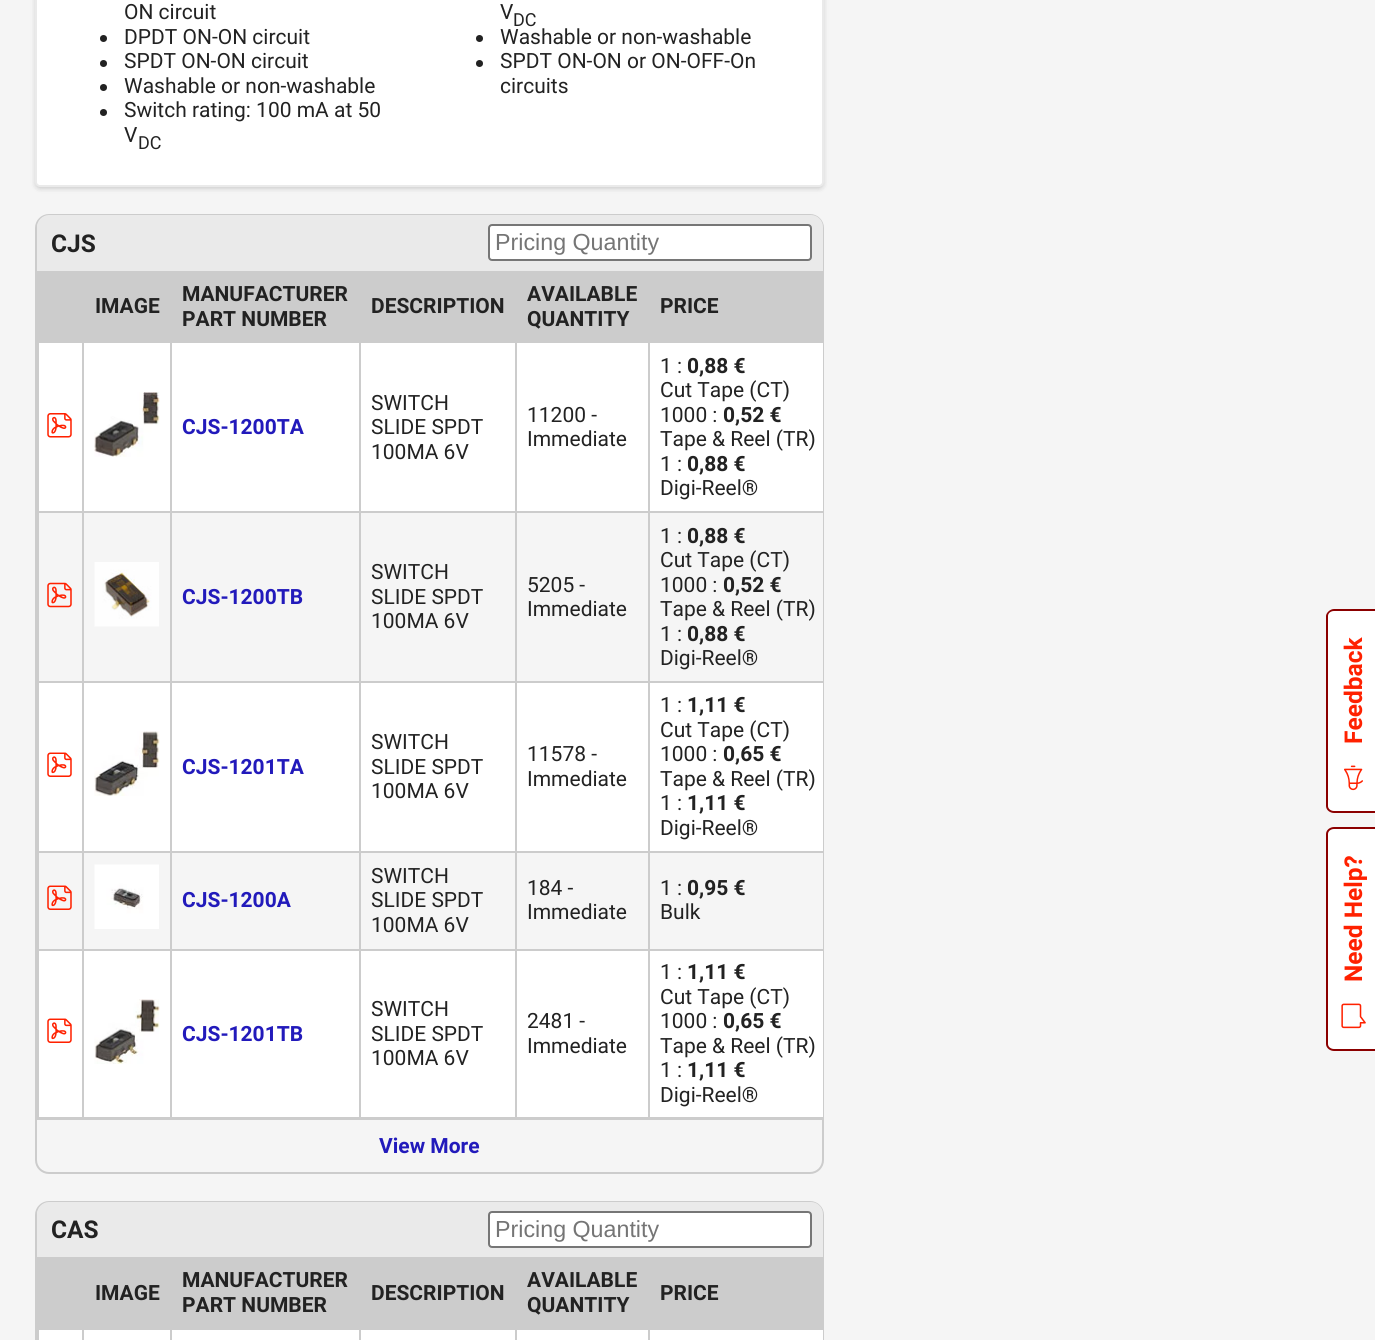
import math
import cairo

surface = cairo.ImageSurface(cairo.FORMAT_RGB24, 1375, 1340)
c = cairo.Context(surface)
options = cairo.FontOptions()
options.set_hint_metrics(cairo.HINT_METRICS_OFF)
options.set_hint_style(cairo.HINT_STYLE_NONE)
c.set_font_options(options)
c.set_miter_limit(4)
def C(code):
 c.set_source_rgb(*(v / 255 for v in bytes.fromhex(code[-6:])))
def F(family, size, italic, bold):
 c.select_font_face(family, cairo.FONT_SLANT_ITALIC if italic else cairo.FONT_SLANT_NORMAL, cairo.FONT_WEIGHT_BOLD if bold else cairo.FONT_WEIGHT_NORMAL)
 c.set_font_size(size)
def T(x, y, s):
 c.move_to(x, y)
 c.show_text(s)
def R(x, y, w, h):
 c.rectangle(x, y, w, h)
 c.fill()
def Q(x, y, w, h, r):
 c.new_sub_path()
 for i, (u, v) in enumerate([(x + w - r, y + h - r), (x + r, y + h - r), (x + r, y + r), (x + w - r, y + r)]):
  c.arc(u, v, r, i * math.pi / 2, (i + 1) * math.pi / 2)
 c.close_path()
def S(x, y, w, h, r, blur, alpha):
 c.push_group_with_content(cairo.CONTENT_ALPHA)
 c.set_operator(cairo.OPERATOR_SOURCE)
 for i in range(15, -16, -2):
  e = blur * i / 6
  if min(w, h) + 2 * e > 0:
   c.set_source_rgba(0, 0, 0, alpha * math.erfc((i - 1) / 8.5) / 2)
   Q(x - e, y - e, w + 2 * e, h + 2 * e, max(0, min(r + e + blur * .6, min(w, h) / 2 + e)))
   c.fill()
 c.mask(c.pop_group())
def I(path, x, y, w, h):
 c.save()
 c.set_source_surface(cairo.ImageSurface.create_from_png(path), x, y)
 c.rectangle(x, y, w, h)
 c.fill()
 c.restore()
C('f5f5f5')
c.paint()
C('000000')
S(35,-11,789,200,5,2,.06)
S(35,-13,789,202,5,2.5,.1)
C('ffffff')
Q(36,-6,787,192,4)
c.fill_preserve()
C('eaeaea')
c.stroke()
F('Roboto',21,0,0)
C('222222')
T(124,19,'ON circuit')
c.new_path()
c.arc(103.5,38.5,3.5,0,2 * math.pi)
c.fill()
T(124,44,'DPDT ON-ON circuit')
c.new_path()
c.arc(103.5,63.5,3.5,0,2 * math.pi)
c.fill()
T(124,68,'SPDT ON-ON circuit')
c.new_path()
c.arc(103.5,87.5,3.5,0,2 * math.pi)
c.fill()
T(124,93,'Washable or non-washable')
c.new_path()
c.arc(103.5,112.5,3.5,0,2 * math.pi)
c.fill()
T(124,117,'Switch rating: 100 mA at 50')
T(124,142,'V')
F('Roboto',18,0,0)
T(138,149,'DC')
F('Roboto',21,0,0)
T(500,19,'V')
F('Roboto',18,0,0)
T(513,26,'DC')
c.new_path()
c.arc(479.5,38.5,3.5,0,2 * math.pi)
c.fill()
F('Roboto',21,0,0)
T(500,44,'Washable or non-washable')
c.new_path()
c.arc(479.5,63.5,3.5,0,2 * math.pi)
c.fill()
T(500,68,'SPDT ON-ON or ON-OFF-On')
T(500,93,'circuits')
Q(36,215,787,958,13)
C('cccccc')
c.stroke()
C('eaeaea')
c.new_path()
c.move_to(49,215)
c.line_to(811,215)
c.curve_to(817.5,215,823,220.5,823,227)
c.line_to(823,271)
c.line_to(37,271)
c.line_to(37,227)
c.curve_to(37,220.5,42.5,215,49,215)
c.close_path()
c.fill()
F('Roboto',24.5,0,1)
C('222222')
T(51,252,'CJS')
C('ffffff')
Q(489,225,322,35,3)
c.fill_preserve()
C('767676')
c.stroke()
F('Liberation Sans',23.25,0,0)
C('757575')
T(495,250,'Pricing Quantity')
C('cccccc')
R(37,271,785,72)
F('Roboto',21,0,1)
C('222222')
T(95,313,'IMAGE')
T(182,301,'MANUFACTURER')
T(182,326,'PART NUMBER')
T(371,313,'DESCRIPTION')
T(527,301,'AVAILABLE')
T(527,326,'QUANTITY')
T(660,313,'PRICE')
C('ffffff')
R(39,343,784,168)
I('1.png',47,413,25,25)
C('cccccc')
R(648,511,175,2)
R(648,681,175,2)
C('ffffff')
R(39,683,784,168)
C('cccccc')
R(648,851,175,2)
R(648,949,175,2)
C('ffffff')
R(39,951,784,166)
C('cccccc')
R(648,1117,175,1)
R(648,949,2,169)
R(515,949,134,2)
R(648,851,2,99)
R(515,851,134,2)
R(648,681,2,171)
R(515,681,134,2)
R(648,511,2,172)
R(515,511,134,2)
R(515,1117,134,1)
R(515,949,2,169)
R(359,949,157,2)
R(515,851,2,99)
R(359,851,157,2)
R(515,681,2,171)
R(359,681,157,2)
R(515,511,2,172)
R(359,511,157,2)
R(359,1117,157,1)
R(359,949,2,169)
R(170,949,191,2)
R(359,851,2,99)
R(170,851,191,2)
R(359,681,2,171)
R(170,681,191,2)
R(359,511,2,172)
R(170,511,191,2)
R(170,1117,191,1)
R(170,949,2,169)
R(82,949,90,2)
R(170,851,2,99)
R(82,851,90,2)
R(170,681,2,171)
R(82,681,90,2)
R(170,511,2,172)
R(82,511,90,2)
R(82,1117,90,1)
R(82,949,2,169)
R(37,949,47,2)
R(82,851,2,99)
R(37,851,47,2)
R(82,681,2,171)
R(37,681,47,2)
R(82,511,2,172)
R(37,511,47,2)
R(82,341,2,172)
I('2.png',94,392,66,65)
R(170,341,2,172)
C('221abb')
T(182,434,'CJS-1200TA')
C('cccccc')
R(359,341,2,172)
F('Roboto',21,0,0)
C('222222')
T(371,410,'SWITCH')
T(371,434,'SLIDE SPDT')
T(371,459,'100MA 6V')
C('cccccc')
R(515,341,2,172)
C('222222')
T(527,422,'11200 -')
T(527,446,'Immediate')
C('cccccc')
R(648,341,2,172)
C('222222')
T(660,373,'1 :')
F('Roboto',21,0,1)
T(687,373,'0,88 €')
F('Roboto',21,0,0)
T(660,397,'Cut Tape (CT)')
T(660,422,'1000 :')
F('Roboto',21,0,1)
T(723,422,'0,52 €')
F('Roboto',21,0,0)
T(660,446,'Tape & Reel (TR)')
T(660,471,'1 :')
F('Roboto',21,0,1)
T(687,471,'0,88 €')
F('Roboto',21,0,0)
T(660,495,'Digi-Reel®')
C('f5f5f5')
R(822,513,1,168)
C('cccccc')
R(37,1117,47,1)
R(37,949,2,169)
R(37,851,2,99)
R(37,681,2,171)
R(37,341,2,342)
I('3.png',47,582,25,26)
I('4.png',94,562,65,65)
F('Roboto',21,0,1)
C('221abb')
T(182,604,'CJS-1200TB')
F('Roboto',21,0,0)
C('222222')
T(371,579,'SWITCH')
T(371,604,'SLIDE SPDT')
T(371,628,'100MA 6V')
T(527,592,'5205 -')
T(527,616,'Immediate')
T(660,543,'1 :')
F('Roboto',21,0,1)
T(687,543,'0,88 €')
F('Roboto',21,0,0)
T(660,567,'Cut Tape (CT)')
T(660,592,'1000 :')
F('Roboto',21,0,1)
T(723,592,'0,52 €')
F('Roboto',21,0,0)
T(660,616,'Tape & Reel (TR)')
T(660,641,'1 :')
F('Roboto',21,0,1)
T(687,641,'0,88 €')
F('Roboto',21,0,0)
T(660,665,'Digi-Reel®')
I('5.png',47,752,25,25)
I('6.png',94,731,66,65)
F('Roboto',21,0,1)
C('221abb')
T(182,774,'CJS-1201TA')
F('Roboto',21,0,0)
C('222222')
T(371,749,'SWITCH')
T(371,774,'SLIDE SPDT')
T(371,798,'100MA 6V')
T(527,761,'11578 -')
T(527,786,'Immediate')
T(660,712,'1 :')
F('Roboto',21,0,1)
T(687,712,'1,11 €')
F('Roboto',21,0,0)
T(660,737,'Cut Tape (CT)')
T(660,761,'1000 :')
F('Roboto',21,0,1)
T(723,761,'0,65 €')
F('Roboto',21,0,0)
T(660,786,'Tape & Reel (TR)')
T(660,810,'1 :')
F('Roboto',21,0,1)
T(687,810,'1,11 €')
F('Roboto',21,0,0)
T(660,835,'Digi-Reel®')
C('f5f5f5')
R(822,853,1,96)
I('7.png',47,885,25,25)
I('8.png',94,864,65,65)
F('Roboto',21,0,1)
C('221abb')
T(182,907,'CJS-1200A')
F('Roboto',21,0,0)
C('222222')
T(371,883,'SWITCH')
T(371,907,'SLIDE SPDT')
T(371,932,'100MA 6V')
T(527,895,'184 -')
T(527,919,'Immediate')
T(660,895,'1 :')
F('Roboto',21,0,1)
T(687,895,'0,95 €')
F('Roboto',21,0,0)
T(660,919,'Bulk')
I('5.png',47,1018,25,25)
I('9.png',94,999,66,65)
F('Roboto',21,0,1)
C('221abb')
T(182,1041,'CJS-1201TB')
F('Roboto',21,0,0)
C('222222')
T(371,1016,'SWITCH')
T(371,1041,'SLIDE SPDT')
T(371,1065,'100MA 6V')
T(527,1028,'2481 -')
T(527,1053,'Immediate')
T(660,979,'1 :')
F('Roboto',21,0,1)
T(687,979,'1,11 €')
F('Roboto',21,0,0)
T(660,1004,'Cut Tape (CT)')
T(660,1028,'1000 :')
F('Roboto',21,0,1)
T(723,1028,'0,65 €')
F('Roboto',21,0,0)
T(660,1053,'Tape & Reel (TR)')
T(660,1077,'1 :')
F('Roboto',21,0,1)
T(687,1077,'1,11 €')
F('Roboto',21,0,0)
T(660,1102,'Digi-Reel®')
C('cccccc')
R(37,1118,786,2)
F('Roboto',21,0,1)
C('221abb')
T(379,1153,'View More')
Q(36,1202,787,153,13)
C('cccccc')
c.stroke()
C('eaeaea')
c.new_path()
c.move_to(49,1202)
c.line_to(811,1202)
c.curve_to(817.5,1202,823,1207.5,823,1214)
c.line_to(823,1258)
c.line_to(37,1258)
c.line_to(37,1214)
c.curve_to(37,1207.5,42.5,1202,49,1202)
c.close_path()
c.fill()
F('Roboto',24.5,0,1)
C('222222')
T(51,1238,'CAS')
C('ffffff')
Q(489,1212,322,35,3)
c.fill_preserve()
C('767676')
c.stroke()
F('Liberation Sans',23.25,0,0)
C('757575')
T(495,1237,'Pricing Quantity')
C('cccccc')
R(37,1259,785,69)
F('Roboto',21,0,1)
C('222222')
T(95,1300,'IMAGE')
T(182,1287,'MANUFACTURER')
T(182,1312,'PART NUMBER')
T(371,1300,'DESCRIPTION')
T(527,1287,'AVAILABLE')
T(527,1312,'QUANTITY')
C('cccccc')
R(37,1257,786,2)
C('222222')
T(660,1300,'PRICE')
C('ffffff')
R(39,1330,784,10)
C('cccccc')
R(648,1328,175,2)
R(648,1328,2,12)
R(515,1328,134,2)
R(515,1328,2,12)
R(359,1328,157,2)
R(359,1328,2,12)
R(170,1328,191,2)
R(170,1328,2,12)
R(82,1328,90,2)
R(82,1328,2,12)
R(37,1328,47,2)
R(37,1328,2,12)
C('ffffff')
c.new_path()
c.move_to(1326,806)
c.line_to(1326,616)
c.curve_to(1326,613,1330,609,1334,609)
c.line_to(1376,609)
c.line_to(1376,813)
c.line_to(1334,813)
c.curve_to(1330,813,1326,810,1326,806)
c.close_path()
c.fill()
C('8b0000')
c.set_fill_rule(cairo.FILL_RULE_EVEN_ODD)
c.new_path()
c.move_to(1326,806)
c.line_to(1326,616)
c.curve_to(1326,613,1330,609,1334,609)
c.line_to(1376,609)
c.line_to(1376,813)
c.line_to(1334,813)
c.curve_to(1330,813,1326,810,1326,806)
c.close_path()
c.move_to(1328,806)
c.line_to(1328,616)
c.curve_to(1328,613,1331,611,1334,611)
c.line_to(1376,611)
c.line_to(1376,811)
c.line_to(1334,811)
c.curve_to(1331,811,1328,809,1328,806)
c.close_path()
c.fill()
F('Roboto',24.5,0,1)
C('ff2100')
c.save()
c.translate(1362,744)
c.rotate(-90 * math.pi / 180)
T(0,0,'Feedback')
c.restore()
I('10.png',1344,765,19,26)
C('ffffff')
c.set_fill_rule(cairo.FILL_RULE_WINDING)
c.new_path()
c.move_to(1326,1044)
c.line_to(1326,834)
c.curve_to(1326,830,1330,827,1334,827)
c.line_to(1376,827)
c.line_to(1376,1051)
c.line_to(1334,1051)
c.curve_to(1330,1051,1326,1048,1326,1044)
c.close_path()
c.fill()
C('8b0000')
c.set_fill_rule(cairo.FILL_RULE_EVEN_ODD)
c.new_path()
c.move_to(1326,1044)
c.line_to(1326,834)
c.curve_to(1326,830,1330,827,1334,827)
c.line_to(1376,827)
c.line_to(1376,1051)
c.line_to(1334,1051)
c.curve_to(1330,1051,1326,1048,1326,1044)
c.close_path()
c.move_to(1328,1044)
c.line_to(1328,834)
c.curve_to(1328,831,1331,829,1334,829)
c.line_to(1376,829)
c.line_to(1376,1049)
c.line_to(1334,1049)
c.curve_to(1331,1049,1328,1047,1328,1044)
c.close_path()
c.fill()
C('ff2100')
c.save()
c.translate(1362,982)
c.rotate(-90 * math.pi / 180)
T(0,0,'Need Help?')
c.restore()
I('11.png',1341,1003,25,26)
surface.write_to_png('o.png')
